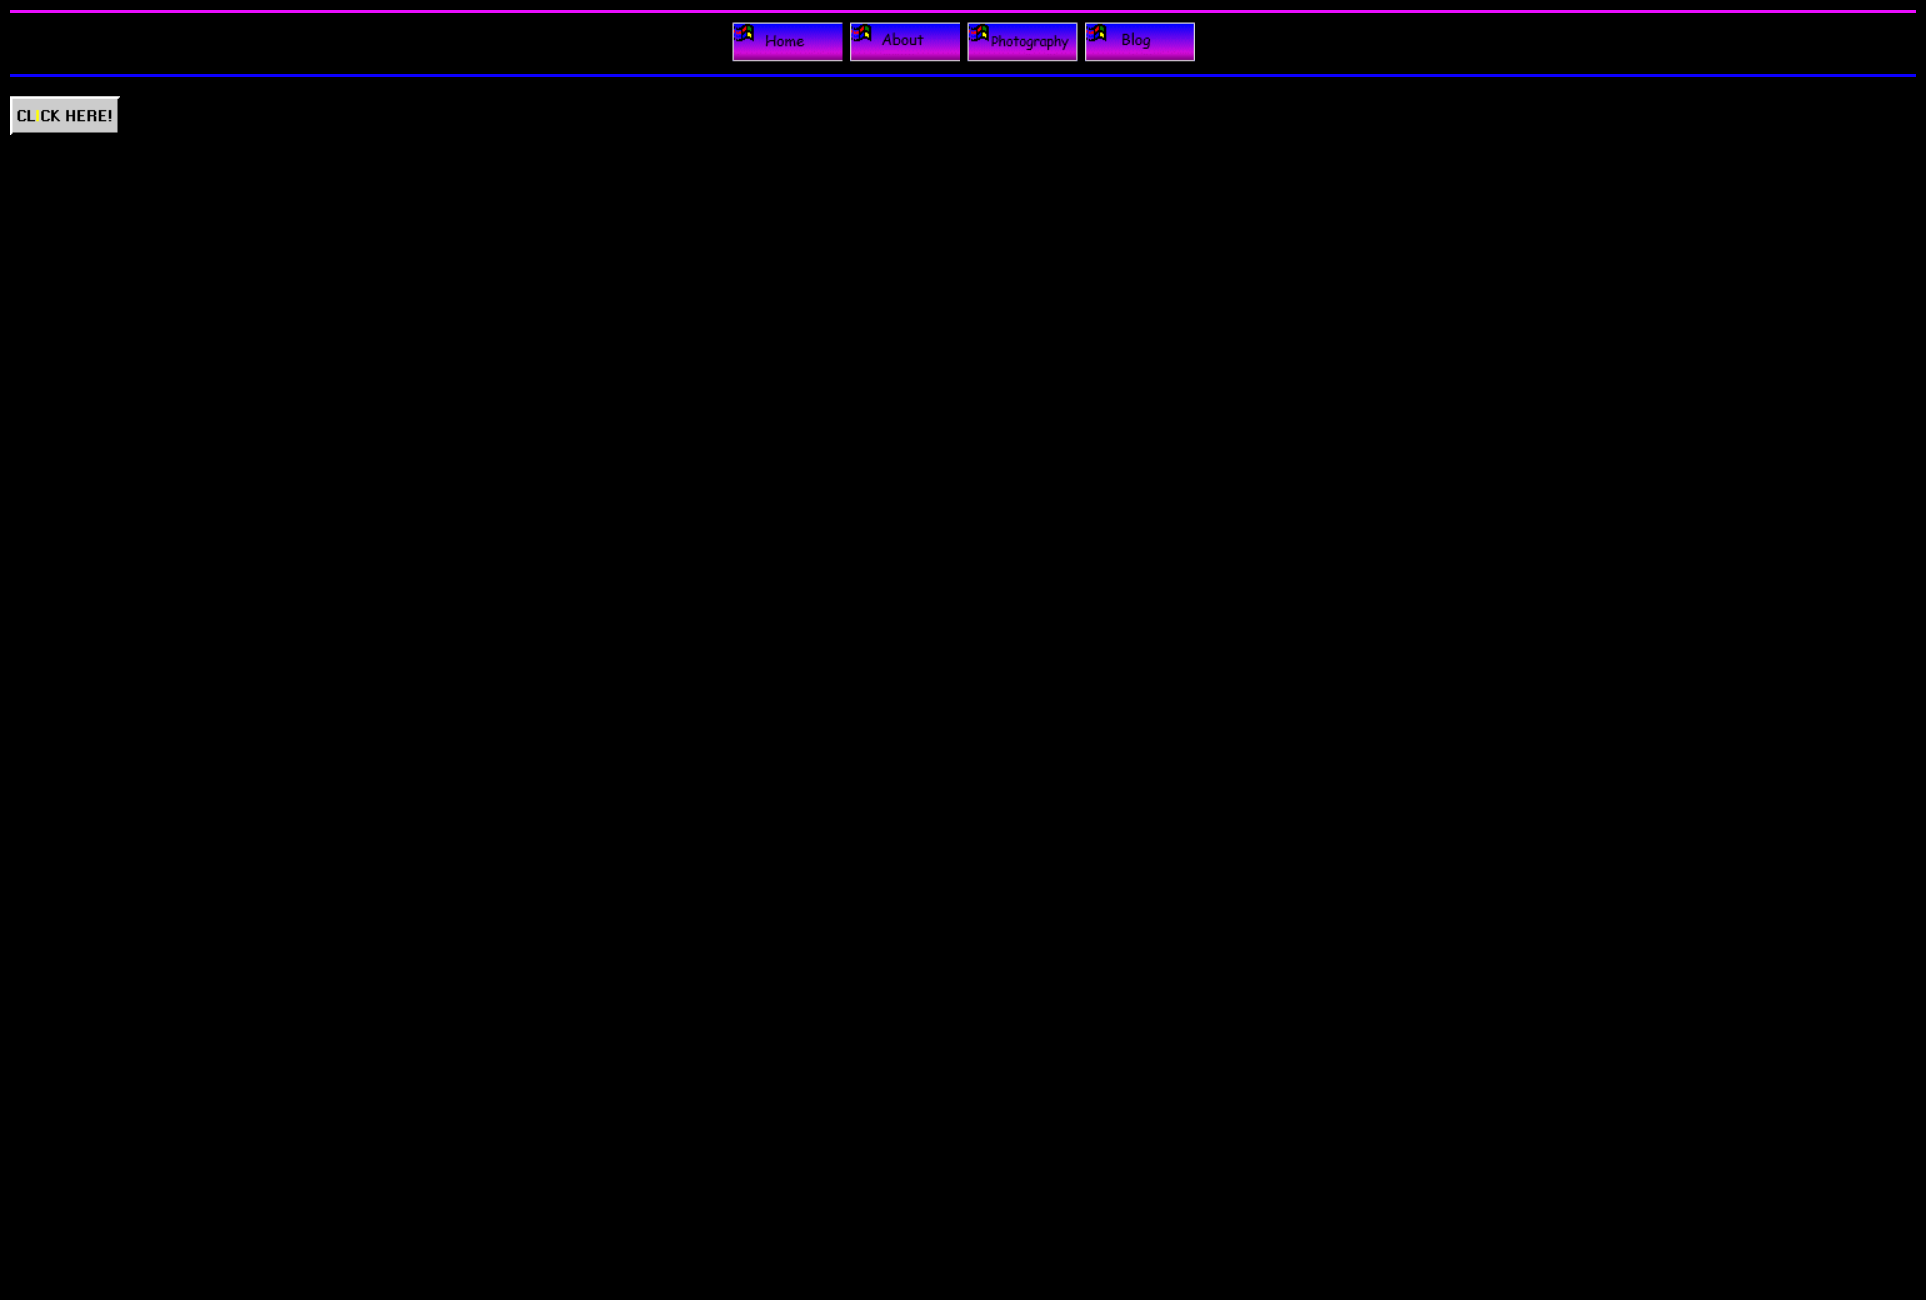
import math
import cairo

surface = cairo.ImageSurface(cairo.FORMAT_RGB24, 1926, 1300)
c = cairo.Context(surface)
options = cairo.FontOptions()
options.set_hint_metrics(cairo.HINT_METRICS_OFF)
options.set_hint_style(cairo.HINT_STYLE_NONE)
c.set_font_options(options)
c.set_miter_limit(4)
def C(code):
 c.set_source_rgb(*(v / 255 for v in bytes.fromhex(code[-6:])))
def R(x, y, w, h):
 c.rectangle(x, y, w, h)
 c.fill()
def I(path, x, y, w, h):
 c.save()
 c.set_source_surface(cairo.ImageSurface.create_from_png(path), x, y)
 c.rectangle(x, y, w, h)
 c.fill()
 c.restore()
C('000000')
c.paint()
C('ea0dff')
R(10,10,1906,3)
I('1.png',732,22,111,40)
I('2.png',850,22,110,40)
I('3.png',967,22,111,40)
I('4.png',1085,22,110,40)
C('0c00ff')
R(10,74,1906,3)
I('5.png',10,96,110,39)
surface.write_to_png('o.png')
